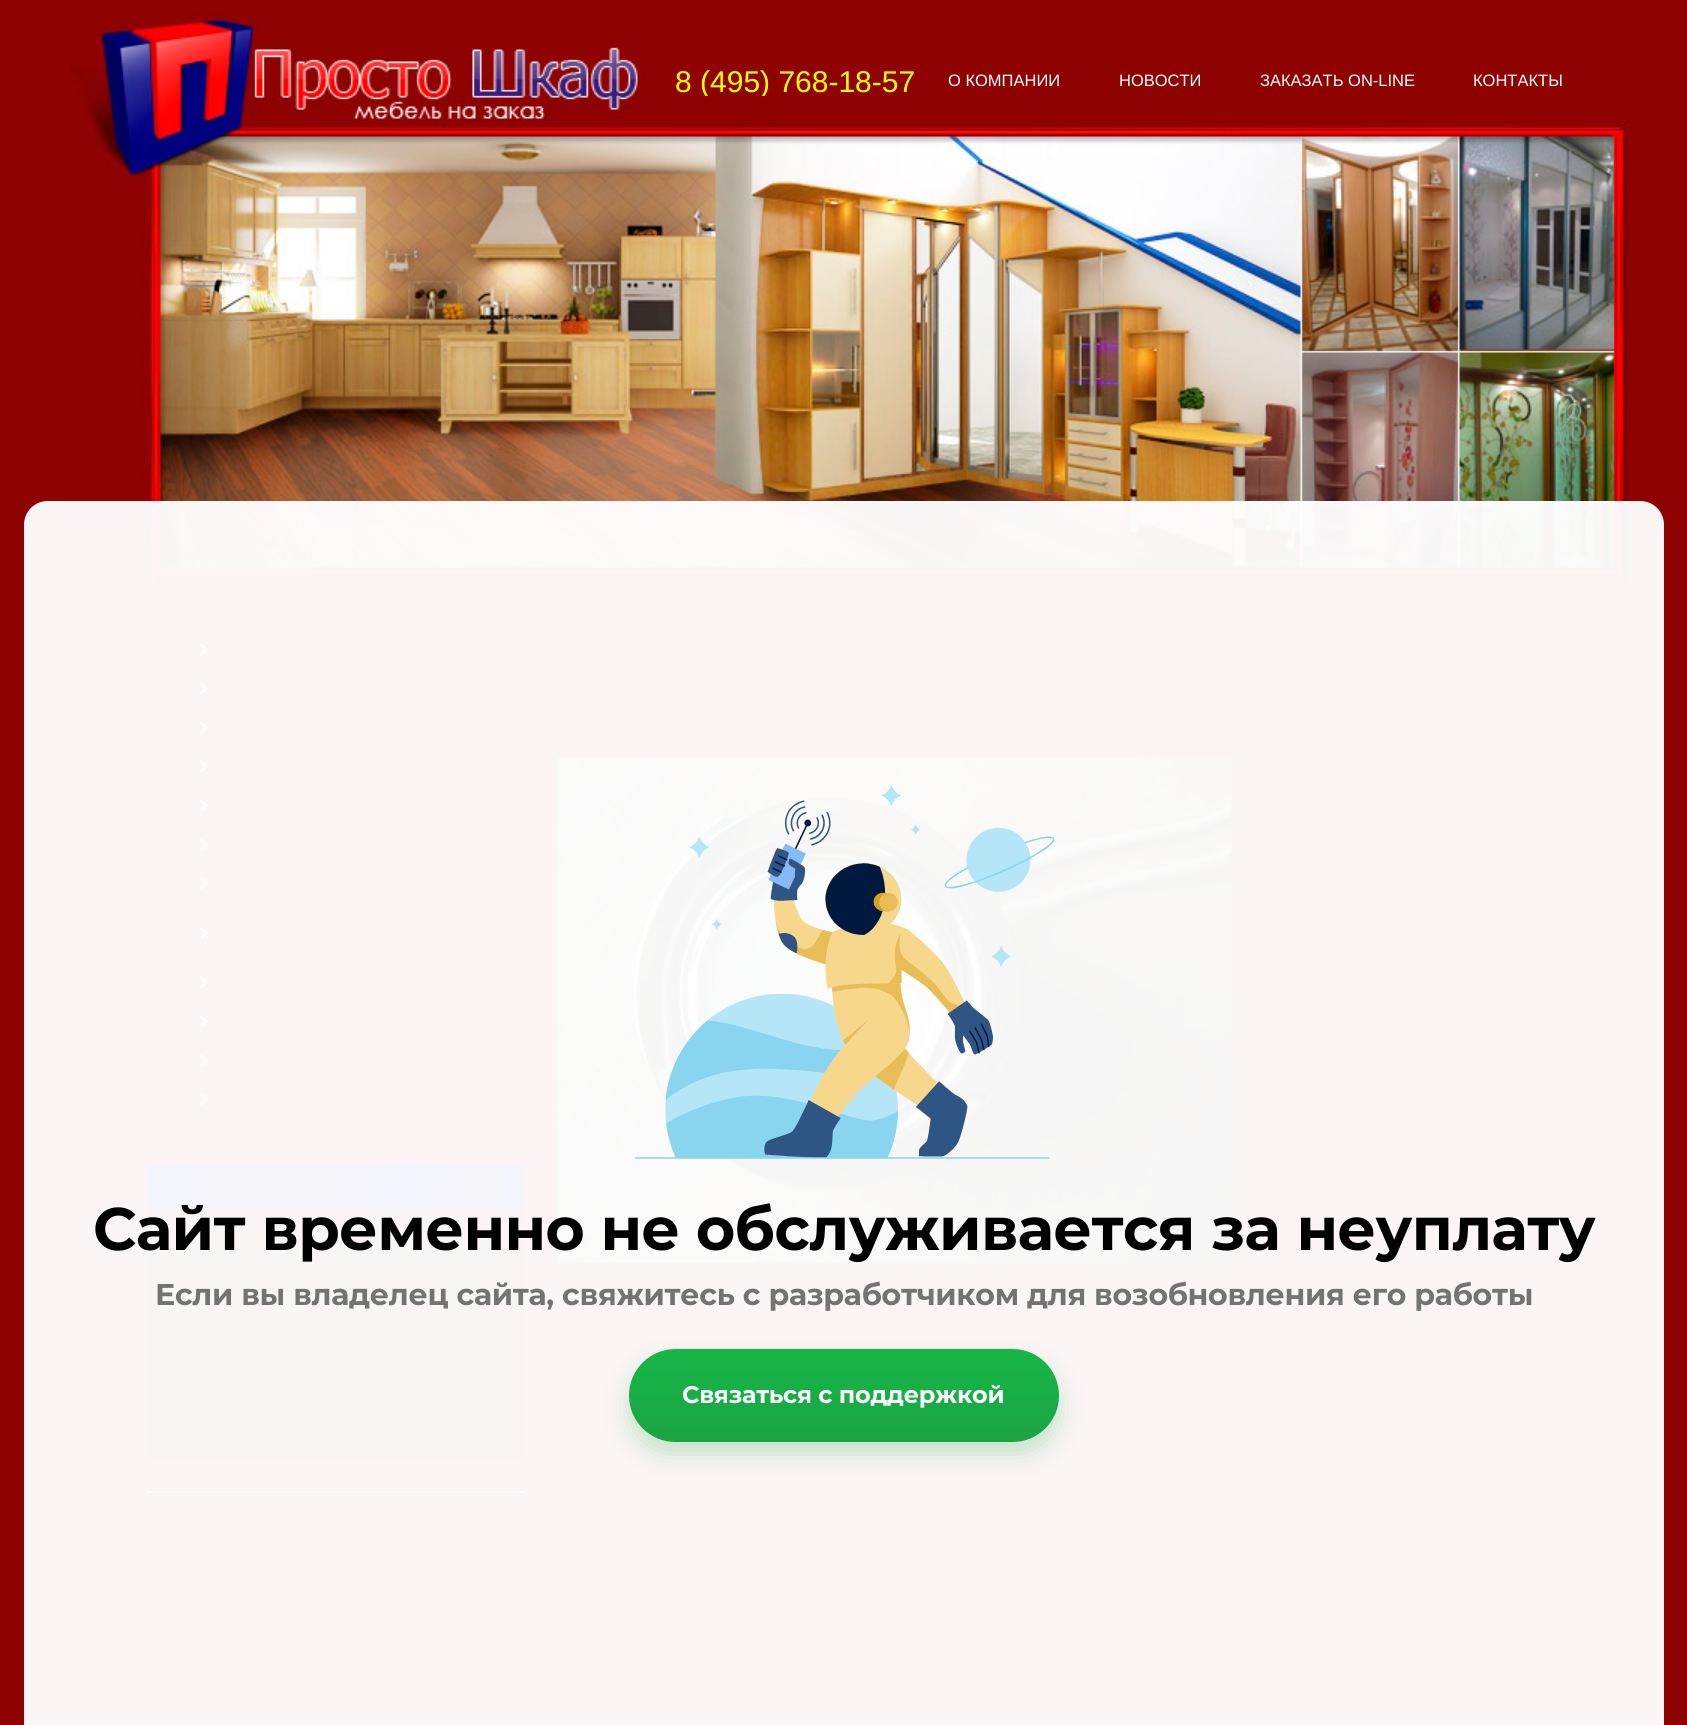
import math
import cairo

surface = cairo.ImageSurface(cairo.FORMAT_RGB24, 1687, 1725)
c = cairo.Context(surface)
options = cairo.FontOptions()
options.set_hint_metrics(cairo.HINT_METRICS_OFF)
options.set_hint_style(cairo.HINT_STYLE_NONE)
c.set_font_options(options)
c.set_miter_limit(4)
def C(code):
 c.set_source_rgb(*(v / 255 for v in bytes.fromhex(code[-6:])))
def F(family, size, italic, bold):
 c.select_font_face(family, cairo.FONT_SLANT_ITALIC if italic else cairo.FONT_SLANT_NORMAL, cairo.FONT_WEIGHT_BOLD if bold else cairo.FONT_WEIGHT_NORMAL)
 c.set_font_size(size)
def T(x, y, s):
 c.move_to(x, y)
 c.show_text(s)
def L(x, y, s, letter, word):
 c.move_to(x, y)
 for ch in s:
  c.show_text(ch)
  c.rel_move_to(letter + word * (ch == ' '), 0)
def R(x, y, w, h):
 c.rectangle(x, y, w, h)
 c.fill()
def Q(x, y, w, h, r):
 c.new_sub_path()
 for i, (u, v) in enumerate([(x + w - r, y + h - r), (x + r, y + h - r), (x + r, y + r), (x + w - r, y + r)]):
  c.arc(u, v, r, i * math.pi / 2, (i + 1) * math.pi / 2)
 c.close_path()
def S(x, y, w, h, r, blur, alpha):
 c.push_group_with_content(cairo.CONTENT_ALPHA)
 c.set_operator(cairo.OPERATOR_SOURCE)
 for i in range(15, -16, -2):
  e = blur * i / 6
  if min(w, h) + 2 * e > 0:
   c.set_source_rgba(0, 0, 0, alpha * math.erfc((i - 1) / 8.5) / 2)
   Q(x - e, y - e, w + 2 * e, h + 2 * e, max(0, min(r + e + blur * .6, min(w, h) / 2 + e)))
   c.fill()
 c.mask(c.pop_group())
def I(path, x, y, w, h):
 c.save()
 c.set_source_surface(cairo.ImageSurface.create_from_png(path), x, y)
 c.rectangle(x, y, w, h)
 c.fill()
 c.restore()
C('8f0202')
c.paint()
I('1.png',70,12,1561,572)
c.save()
c.rectangle(675,63,300,33)
c.clip()
F('Liberation Sans',30,0,0)
C('ffff00')
T(675,92,'8 (495) 768-18-57')
c.restore()
F('Liberation Sans',16.5,0,0)
C('ffffff')
T(948,86,'О КОМПАНИИ')
T(1119,86,'НОВОСТИ')
T(1260,86,'ЗАКАЗАТЬ ON-LINE')
T(1473,86,'КОНТАКТЫ')
I('2.png',200,643,7,13)
I('2.png',200,682,7,13)
I('2.png',200,721,7,13)
I('2.png',200,760,7,13)
I('2.png',200,799,7,13)
I('2.png',200,838,7,13)
I('2.png',200,877,7,13)
I('3.png',200,927,7,12)
I('2.png',200,976,7,13)
I('2.png',200,1015,7,13)
I('2.png',200,1054,7,13)
I('2.png',200,1093,7,13)
I('4.png',147,1164,377,47)
I('5.png',147,1210,377,250)
R(147,1491,377,2)
I('6.png',556,757,676,506)
c.set_source_rgba(1,1,1,0.96)
c.new_path()
c.move_to(48,501)
c.line_to(1640,501)
c.curve_to(1653.5,501,1664,511.5,1664,525)
c.line_to(1664,1725)
c.line_to(24,1725)
c.line_to(24,525)
c.curve_to(24,511.5,34.5,501,48,501)
c.close_path()
c.fill()
I('7.png',635,785,420,374)
F('Montserrat',60,0,1)
C('000000')
L(93,1250,'Сайт временно не обслуживается за неуплату',-.6,0)
F('Montserrat',30,0,1)
C('737373')
L(155,1305,'Если вы владелец сайта, свяжитесь с разработчиком для возобновления его работы',-.3,0)
C('1ca345')
S(629,1361,430,93,46.5,12,.24)
gradient = cairo.LinearGradient(844,1349,844,1442)
gradient.add_color_stop_rgba(0,0.082,0.718,0.275,1)
gradient.add_color_stop_rgba(1,0.11,0.639,0.271,1)
c.set_source(gradient)
Q(629,1349,430,93,46.5)
c.fill()
F('Montserrat',24,0,1)
C('ffffff')
L(682,1403,'Связаться с поддержкой',-.25,0)
surface.write_to_png('o.png')
